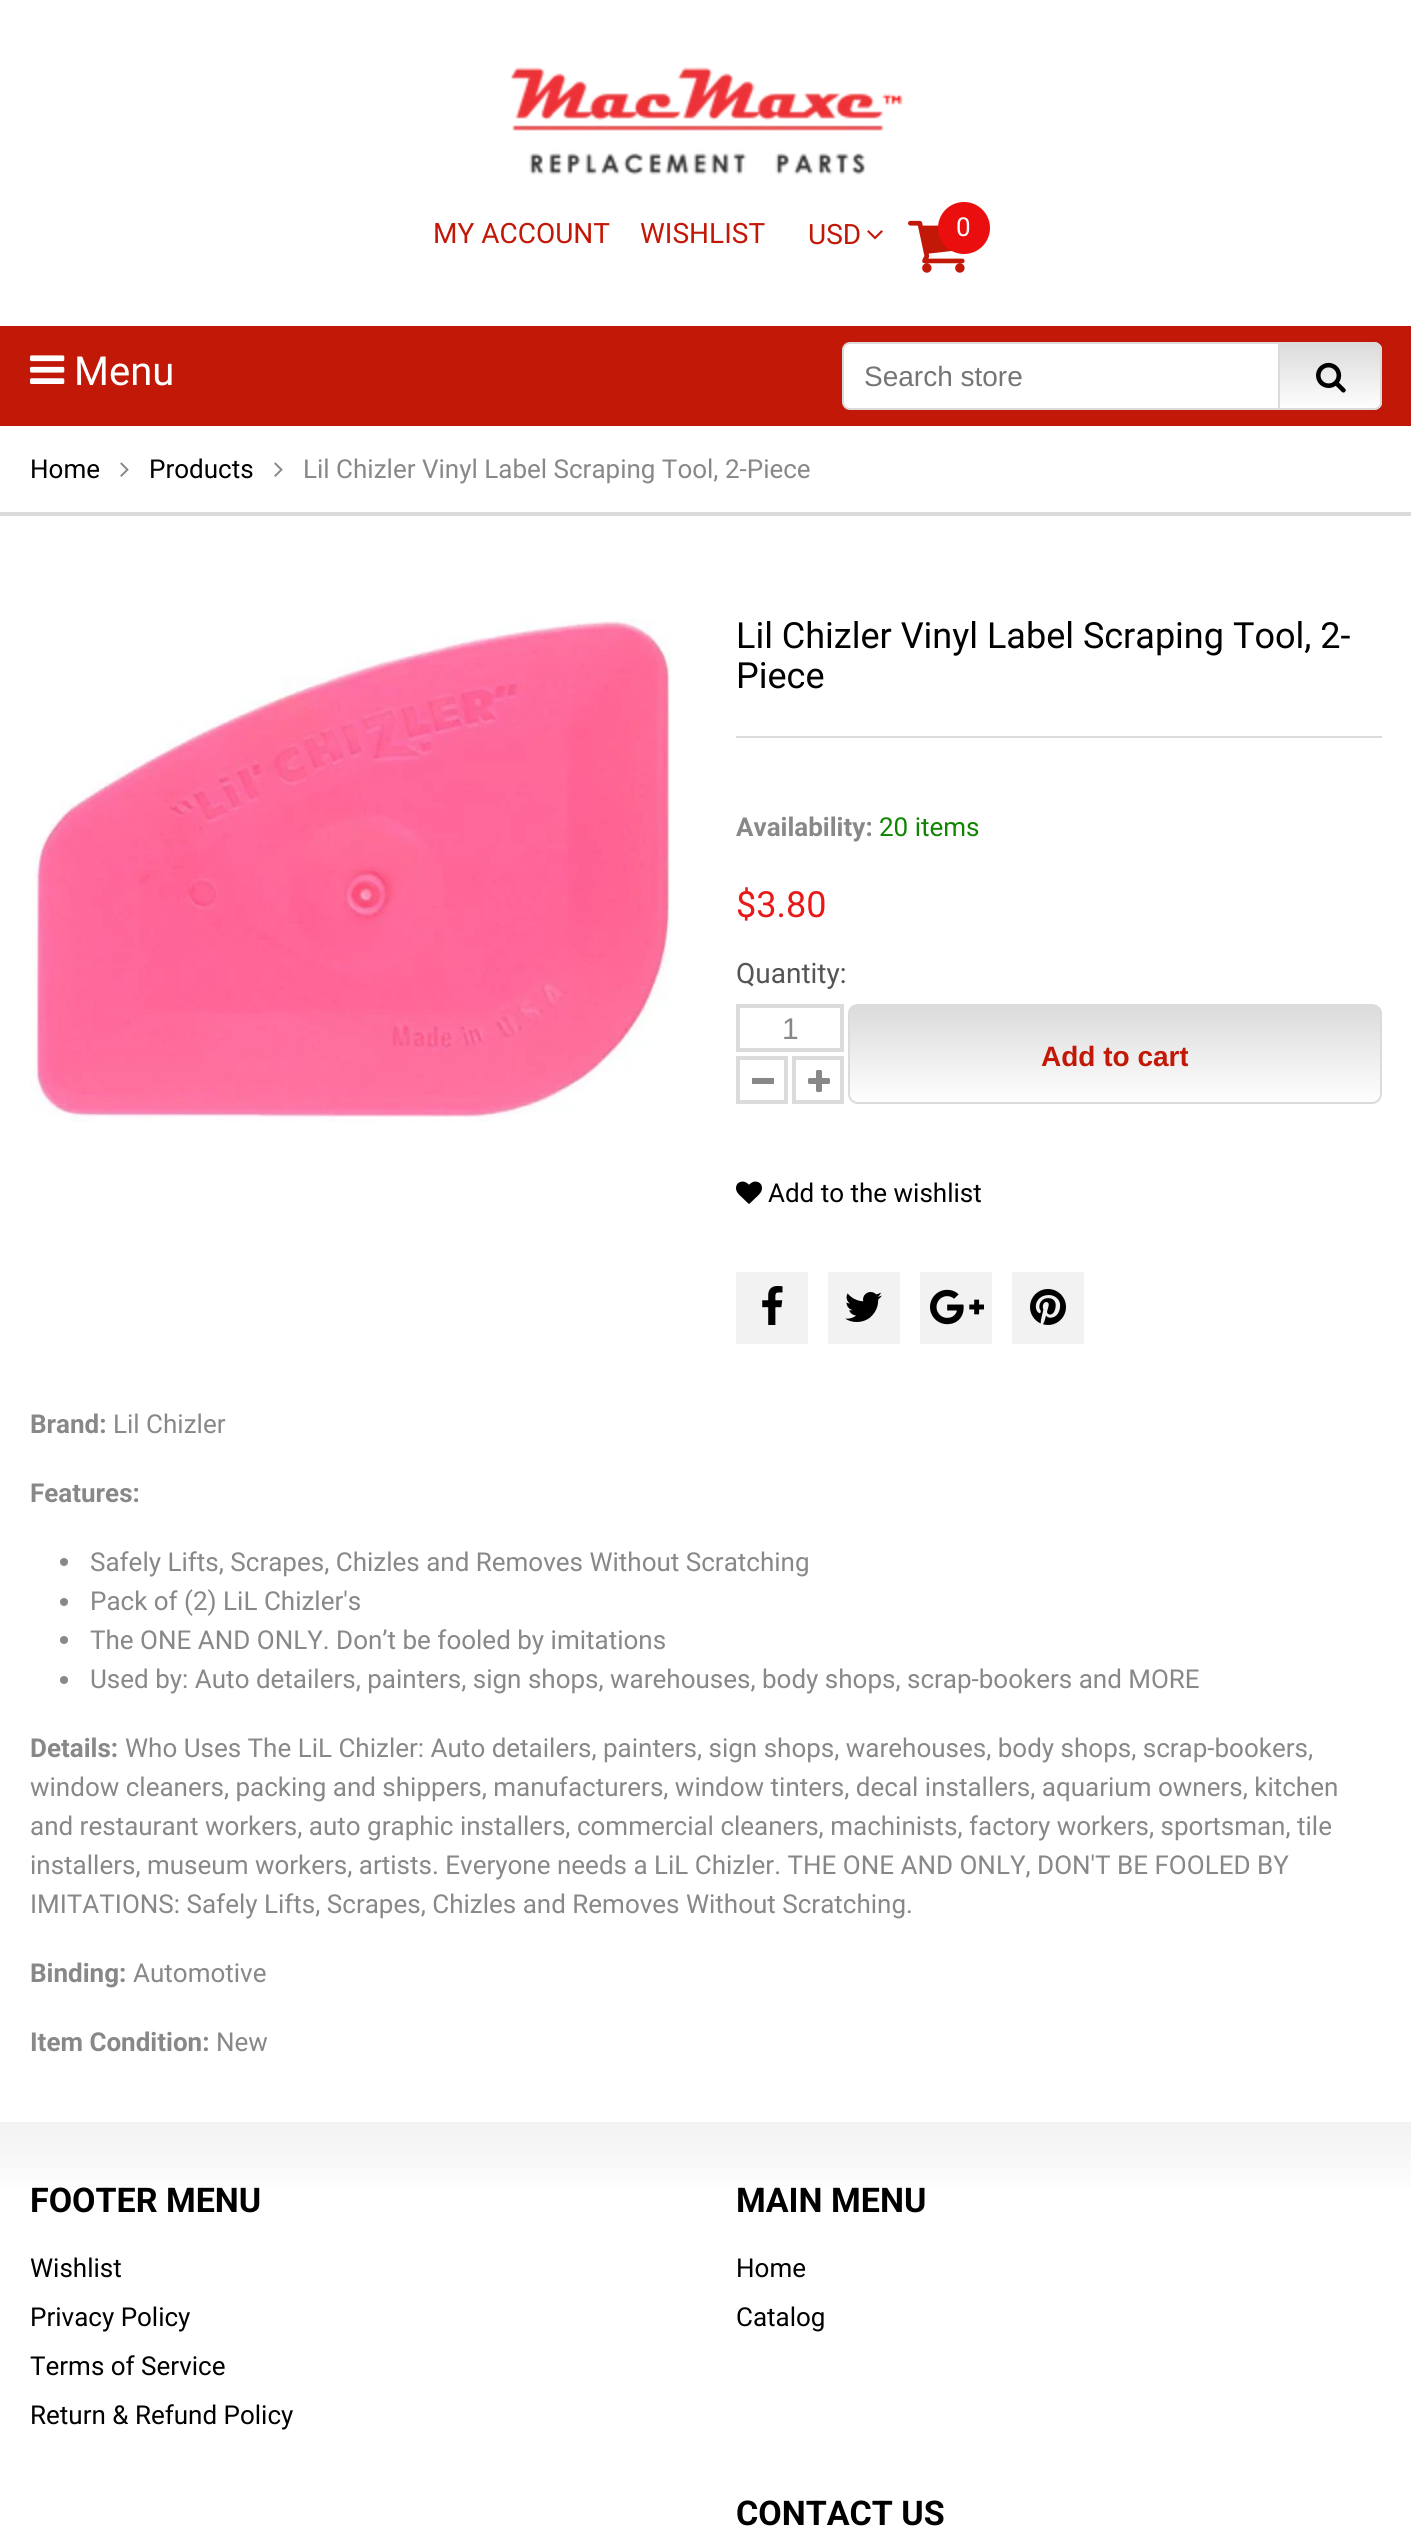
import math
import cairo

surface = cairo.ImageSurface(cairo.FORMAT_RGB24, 1411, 2530)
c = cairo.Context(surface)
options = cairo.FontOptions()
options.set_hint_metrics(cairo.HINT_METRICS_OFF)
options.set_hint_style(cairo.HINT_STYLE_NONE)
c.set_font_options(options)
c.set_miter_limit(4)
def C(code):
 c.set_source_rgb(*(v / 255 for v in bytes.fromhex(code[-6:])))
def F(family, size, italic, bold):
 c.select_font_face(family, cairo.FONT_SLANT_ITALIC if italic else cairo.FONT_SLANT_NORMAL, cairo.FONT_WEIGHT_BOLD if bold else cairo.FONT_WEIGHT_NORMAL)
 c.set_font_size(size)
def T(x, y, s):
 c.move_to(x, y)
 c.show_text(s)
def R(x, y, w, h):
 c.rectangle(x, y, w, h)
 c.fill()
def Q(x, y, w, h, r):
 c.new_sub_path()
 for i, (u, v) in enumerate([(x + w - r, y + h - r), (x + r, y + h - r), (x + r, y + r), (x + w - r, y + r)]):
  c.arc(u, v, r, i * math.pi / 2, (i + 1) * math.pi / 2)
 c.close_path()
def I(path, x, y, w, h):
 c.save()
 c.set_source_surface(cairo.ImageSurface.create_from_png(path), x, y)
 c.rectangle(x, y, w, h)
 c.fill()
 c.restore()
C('ffffff')
c.paint()
I('1.png',510,67,393,108)
F('Roboto',28,0,0)
C('c21807')
T(433,243,'MY ACCOUNT')
T(640,243,'WISHLIST')
T(808,244,'USD')
I('2.png',867,230,16,10)
I('3.png',908,220,57,53)
C('eb0e0e')
c.arc(964,228,26,0,2 * math.pi)
c.fill()
F('Roboto',26,0,0)
C('ffffff')
T(956,236,'0')
C('c21807')
R(0,326,1411,100)
I('4.png',30,355,35,29)
F('Roboto',40,0,0)
C('ffffff')
T(74,385,'Menu')
Q(843,343,538,66,7)
c.fill_preserve()
C('dbdbdb')
c.stroke()
F('Liberation Sans',28,0,0)
C('757575')
T(864,386,'Search store')
c.save()
c.new_path()
c.move_to(1278,342)
c.line_to(1374,342)
c.curve_to(1378.5,342,1382,345.5,1382,350)
c.line_to(1382,402)
c.curve_to(1382,406.5,1378.5,410,1374,410)
c.line_to(1278,410)
c.close_path()
c.clip()
gradient = cairo.LinearGradient(1330,344,1330,408)
gradient.add_color_stop_rgba(0,0.859,0.859,0.859,1)
gradient.add_color_stop_rgba(1,0.996,0.996,0.996,1)
c.set_source(gradient)
R(1280,344,102,64)
c.restore()
c.new_path()
c.move_to(1279,343)
c.line_to(1374,343)
c.curve_to(1378,343,1381,346,1381,350)
c.line_to(1381,402)
c.curve_to(1381,406,1378,409,1374,409)
c.line_to(1279,409)
c.close_path()
C('dbdbdb')
c.stroke()
I('5.png',1316,362,30,31)
R(0,512,1411,4)
F('Roboto',26,0,0)
C('000000')
T(30,478,'Home')
I('6.png',120,462,9,15)
T(149,478,'Products')
I('6.png',274,462,9,15)
C('888888')
T(303,478,'Lil Chizler Vinyl Label Scraping Tool, 2-Piece')
I('7.png',30,619,641,503)
F('Roboto',36,0,0)
C('000000')
T(736,648,'Lil Chizler Vinyl Label Scraping Tool, 2-')
T(736,688,'Piece')
C('dbdbdb')
R(736,736,646,2)
F('Roboto',26,0,1)
C('888888')
T(736,836,'Availability:')
F('Roboto',26,0,0)
C('118502')
T(879,836,'20 items')
F('Roboto',36,0,0)
C('e81919')
T(736,917,'$3.80')
F('Roboto',28,0,0)
C('555555')
T(736,983,'Quantity:')
c.rectangle(738,1006,104,44)
C('dbdbdb')
c.set_line_width(4)
c.stroke()
F('Liberation Sans',30,0,0)
C('888888')
T(782,1039,'1')
c.rectangle(738,1058,48,44)
C('dbdbdb')
c.stroke()
C('888888')
R(752,1078,22,6)
c.rectangle(794,1058,48,44)
C('dbdbdb')
c.stroke()
I('8.png',808,1070,22,22)
c.save()
Q(848,1004,534,100,10)
c.clip()
gradient = cairo.LinearGradient(1115,1006,1115,1102)
gradient.add_color_stop_rgba(0,0.859,0.859,0.859,1)
gradient.add_color_stop_rgba(1,0.996,0.996,0.996,1)
c.set_source(gradient)
R(848,1006,534,96)
c.restore()
Q(849,1005,532,98,9)
c.set_line_width(2)
c.stroke()
F('Liberation Sans',28,0,1)
C('c21807')
T(1041,1066,'Add to cart')
I('9.png',736,1181,26,23)
F('Roboto',26,0,0)
C('000000')
T(768,1202,'Add to the wishlist')
C('f2f2f2')
R(736,1272,72,72)
I('10.png',762,1286,21,39)
R(828,1272,72,72)
I('11.png',845,1292,37,30)
R(920,1272,72,72)
I('12.png',930,1289,54,36)
R(1012,1272,72,72)
I('13.png',1030,1289,36,36)
F('Roboto',26,0,1)
C('888888')
T(30,1433,'Brand:')
F('Roboto',26,0,0)
T(113,1433,'Lil Chizler')
F('Roboto',26,0,1)
T(30,1502,'Features:')
c.new_path()
c.arc(64,1562,4,0,2 * math.pi)
c.fill()
F('Roboto',26,0,0)
T(90,1571,'Safely Lifts, Scrapes, Chizles and Removes Without Scratching')
c.new_path()
c.arc(64,1602,4,0,2 * math.pi)
c.fill()
T(90,1610,'Pack of (2) LiL Chizler\'s')
c.new_path()
c.arc(64,1640,4,0,2 * math.pi)
c.fill()
T(90,1649,'The ONE AND ONLY. Don’t be fooled by imitations')
c.new_path()
c.arc(64,1680,4,0,2 * math.pi)
c.fill()
T(90,1688,'Used by: Auto detailers, painters, sign shops, warehouses, body shops, scrap-bookers and MORE')
F('Roboto',26,0,1)
T(30,1757,'Details:')
F('Roboto',26,0,0)
T(125,1757,'Who Uses The LiL Chizler: Auto detailers, painters, sign shops, warehouses, body shops, scrap-bookers,')
T(30,1796,'window cleaners, packing and shippers, manufacturers, window tinters, decal installers, aquarium owners, kitchen')
T(30,1835,'and restaurant workers, auto graphic installers, commercial cleaners, machinists, factory workers, sportsman, tile')
T(30,1874,'installers, museum workers, artists. Everyone needs a LiL Chizler. THE ONE AND ONLY, DON\'T BE FOOLED BY')
T(30,1913,'IMITATIONS: Safely Lifts, Scrapes, Chizles and Removes Without Scratching.')
F('Roboto',26,0,1)
T(30,1982,'Binding:')
F('Roboto',26,0,0)
T(133,1982,'Automotive')
F('Roboto',26,0,1)
T(30,2051,'Item Condition:')
F('Roboto',26,0,0)
T(216,2051,'New')
gradient = cairo.LinearGradient(0,2122,0,2202)
gradient.add_color_stop_rgba(0,0.949,0.949,0.949,1)
gradient.add_color_stop_rgba(1,1,1,1,1)
c.set_source(gradient)
R(0,2122,1411,65)
F('Roboto',34,0,1)
C('000000')
T(30,2212,'FOOTER MENU')
F('Roboto',26,0,0)
T(30,2277,'Wishlist')
T(30,2326,'Privacy Policy')
T(30,2375,'Terms of Service')
T(30,2424,'Return & Refund Policy')
F('Roboto',34,0,1)
T(736,2212,'MAIN MENU')
F('Roboto',26,0,0)
T(736,2277,'Home')
T(736,2326,'Catalog')
F('Roboto',34,0,1)
T(736,2525,'CONTACT US')
surface.write_to_png('o.png')
